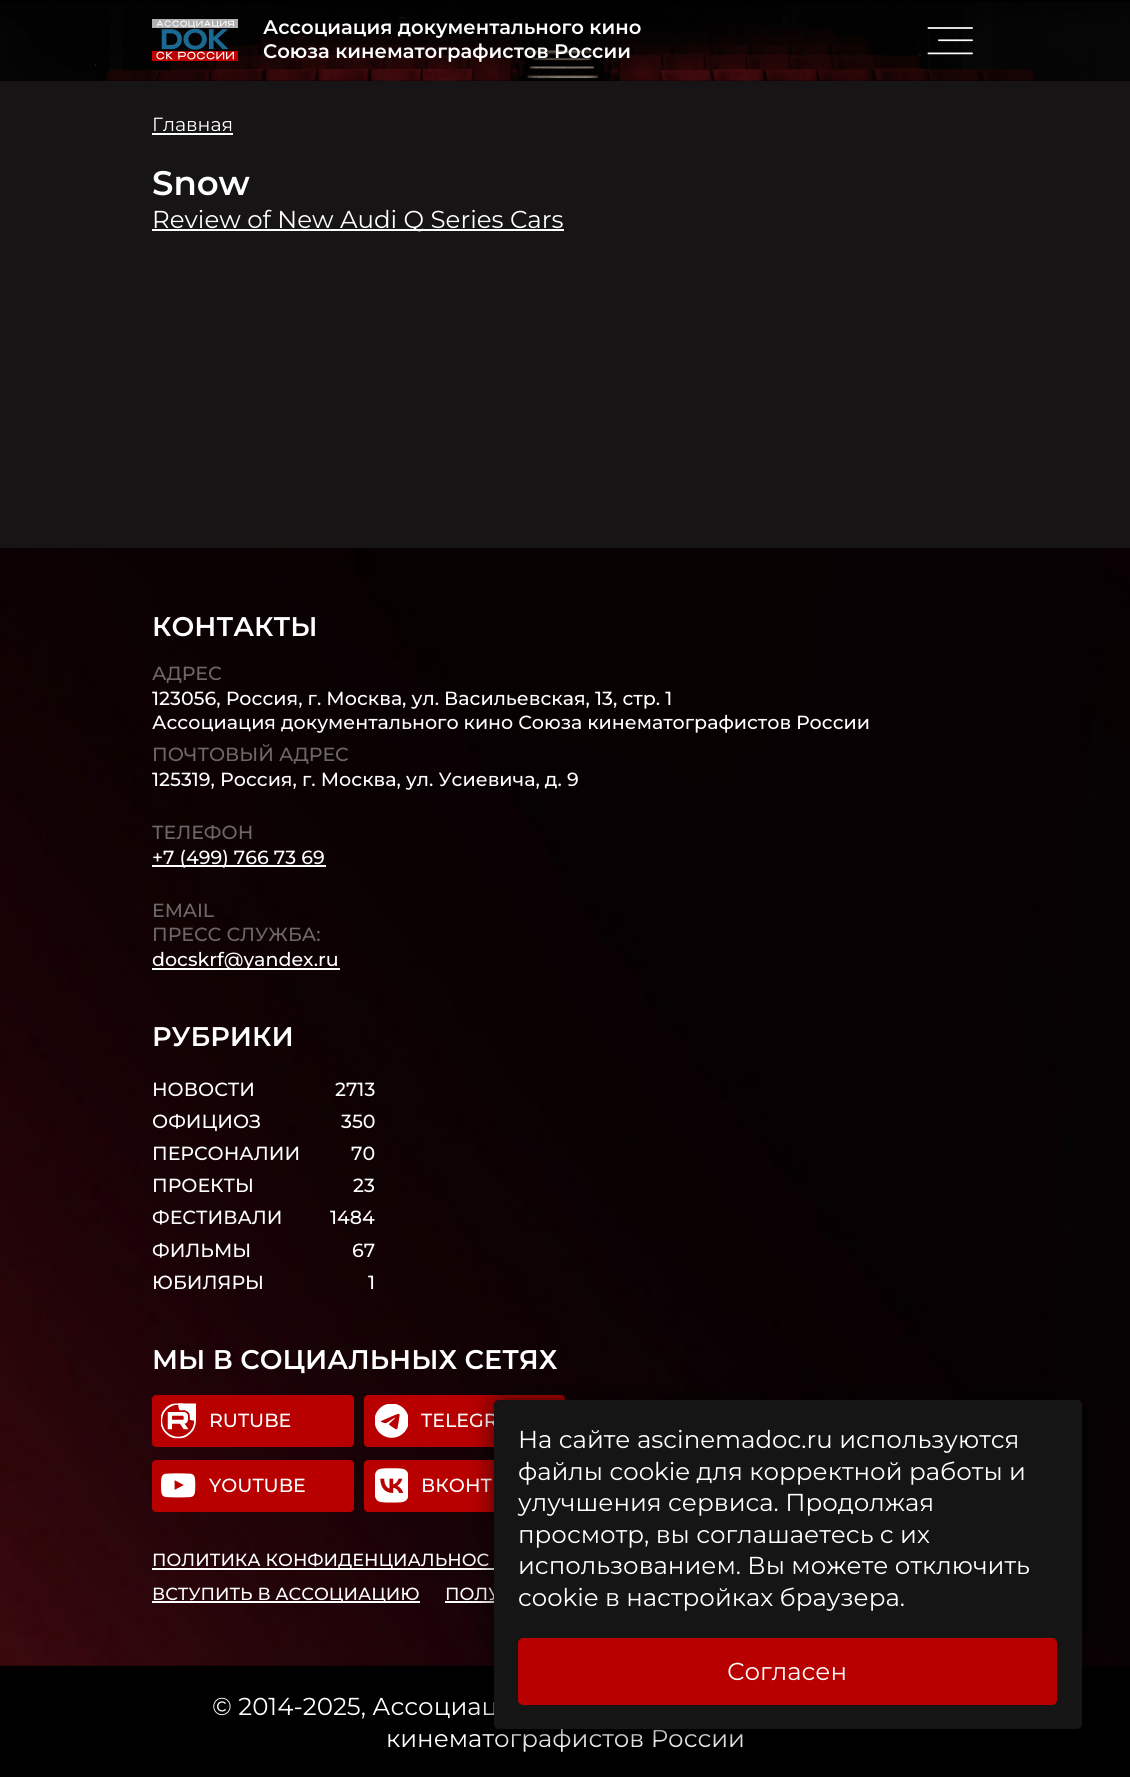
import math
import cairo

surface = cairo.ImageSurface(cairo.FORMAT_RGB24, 1130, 1777)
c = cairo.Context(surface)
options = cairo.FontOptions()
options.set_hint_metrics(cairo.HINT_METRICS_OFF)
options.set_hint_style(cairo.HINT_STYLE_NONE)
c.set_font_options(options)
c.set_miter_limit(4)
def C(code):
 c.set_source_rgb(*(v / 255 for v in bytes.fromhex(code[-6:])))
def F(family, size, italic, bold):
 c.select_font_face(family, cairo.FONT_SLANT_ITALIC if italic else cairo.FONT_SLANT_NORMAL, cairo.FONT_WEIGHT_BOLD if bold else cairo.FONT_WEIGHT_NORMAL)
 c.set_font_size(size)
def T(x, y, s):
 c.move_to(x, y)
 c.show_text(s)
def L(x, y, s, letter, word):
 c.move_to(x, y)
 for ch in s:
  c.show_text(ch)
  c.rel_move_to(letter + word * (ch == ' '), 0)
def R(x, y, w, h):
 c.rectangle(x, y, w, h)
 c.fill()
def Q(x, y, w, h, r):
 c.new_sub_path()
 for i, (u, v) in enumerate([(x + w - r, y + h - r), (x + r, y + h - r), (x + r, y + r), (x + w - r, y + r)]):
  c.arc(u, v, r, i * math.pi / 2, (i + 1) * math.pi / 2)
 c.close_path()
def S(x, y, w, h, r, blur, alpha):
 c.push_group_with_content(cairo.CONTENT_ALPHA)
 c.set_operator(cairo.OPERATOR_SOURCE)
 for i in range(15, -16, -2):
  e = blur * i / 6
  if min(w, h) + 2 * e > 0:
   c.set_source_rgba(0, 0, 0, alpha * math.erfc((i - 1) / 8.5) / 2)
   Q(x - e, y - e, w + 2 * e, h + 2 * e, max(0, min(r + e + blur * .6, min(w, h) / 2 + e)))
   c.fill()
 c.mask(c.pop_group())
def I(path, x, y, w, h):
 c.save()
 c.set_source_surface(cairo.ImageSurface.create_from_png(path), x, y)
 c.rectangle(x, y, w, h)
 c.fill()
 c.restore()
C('171416')
c.paint()
C('000000')
R(0,0,1130,81)
I('1.png',0,2,1130,79)
I('2.png',152,19,86,42)
F('Montserrat SemiBold',19.6,0,0)
C('ffffff')
T(263,34,'Ассоциация документального кино')
T(263,58,'Союза кинематографистов России')
I('3.png',927,27,46,28)
F('Montserrat',19.05,0,0)
T(152,131,'Главная')
R(152,133,81,2)
F('Montserrat SemiBold',34,0,0)
T(152,195,'Snow')
R(152,229,412,2)
F('Montserrat',24.5,0,0)
T(152,228,'Review of New Audi Q Series Cars')
C('000000')
R(0,1665,1130,112)
I('4.png',0,548,1130,1118)
F('Montserrat SemiBold',27,0,0)
C('ffffff')
T(152,636,'КОНТАКТЫ')
F('Montserrat Medium',19.05,0,0)
C('6d6768')
T(152,680,'АДРЕС')
C('ffffff')
T(152,705,'123056, Россия, г. Москва, ул. Васильевская, 13, стр. 1')
L(152,729,'Ассоциация документального кино Союза кинематографистов России',0,-.25)
C('6d6768')
T(152,761,'ПОЧТОВЫЙ АДРЕС')
C('ffffff')
T(152,786,'125319, Россия, г. Москва, ул. Усиевича, д. 9')
C('6d6768')
T(152,839,'ТЕЛЕФОН')
C('ffffff')
R(152,865,174,2)
T(152,864,'+7 (499) 766 73 69')
C('6d6768')
T(152,917,'EMAIL')
T(152,941,'ПРЕСС СЛУЖБА:')
C('ffffff')
R(152,968,188,2)
T(152,966,'docskrf@yandex.ru')
F('Montserrat SemiBold',27,0,0)
T(152,1046,'РУБРИКИ')
F('Montserrat Medium',19.05,0,0)
T(152,1096,'НОВОСТИ')
T(335,1096,'2713')
T(152,1128,'ОФИЦИОЗ')
T(341,1128,'350')
T(152,1160,'ПЕРСОНАЛИИ')
T(351,1160,'70')
T(152,1192,'ПРОЕКТЫ')
T(353,1192,'23')
T(152,1224,'ФЕСТИВАЛИ')
T(330,1224,'1484')
T(152,1257,'ФИЛЬМЫ')
T(352,1257,'67')
T(152,1289,'ЮБИЛЯРЫ')
T(368,1289,'1')
F('Montserrat SemiBold',27,0,0)
T(152,1369,'МЫ В СОЦИАЛЬНЫХ СЕТЯХ')
C('b80000')
Q(153,1396,200,50,3)
c.fill_preserve()
c.stroke()
I('5.png',161,1403,35,36)
F('Montserrat Medium',19.05,0,0)
C('ffffff')
T(209,1427,'RUTUBE')
C('b80000')
Q(365,1396,199,50,3)
c.fill_preserve()
c.stroke()
I('6.png',375,1404,33,34)
C('ffffff')
T(421,1427,'TELEGR')
C('b80000')
Q(153,1461,200,50,3)
c.fill_preserve()
c.stroke()
I('7.png',161,1473,35,25)
C('ffffff')
T(209,1492,'YOUTUBE')
C('b80000')
Q(365,1461,199,50,3)
c.fill_preserve()
c.stroke()
I('8.png',375,1468,33,35)
C('ffffff')
T(421,1492,'ВКОНТ')
R(152,1568,342,2)
F('Montserrat Medium',17.6,0,0)
T(152,1566,'ПОЛИТИКА КОНФИДЕНЦИАЛЬНОС')
R(152,1601,268,2)
T(152,1600,'ВСТУПИТЬ В АССОЦИАЦИЮ')
T(445,1600,'ПОЛУ')
R(445,1601,49,2)
F('Montserrat',24.5,0,0)
T(212,1715,'© 2014-2025, Ассоциац')
T(386,1747,'кинематографистов России')
C('000000')
S(497,1400,588,329,5,13,.75)
C('151515')
Q(494,1400,588,329,5)
c.fill()
C('ffffff')
T(518,1448,'На сайте ascinemadoc.ru используются')
T(518,1480,'файлы cookie для корректной работы и')
T(518,1511,'улучшения сервиса. Продолжая')
T(518,1543,'просмотр, вы соглашаетесь с их')
T(518,1574,'использованием. Вы можете отключить')
T(518,1606,'cookie в настройках браузера.')
C('b80000')
Q(519,1639,537,65,4)
c.fill_preserve()
c.stroke()
C('ffffff')
T(727,1680,'Согласен')
surface.write_to_png('o.png')
